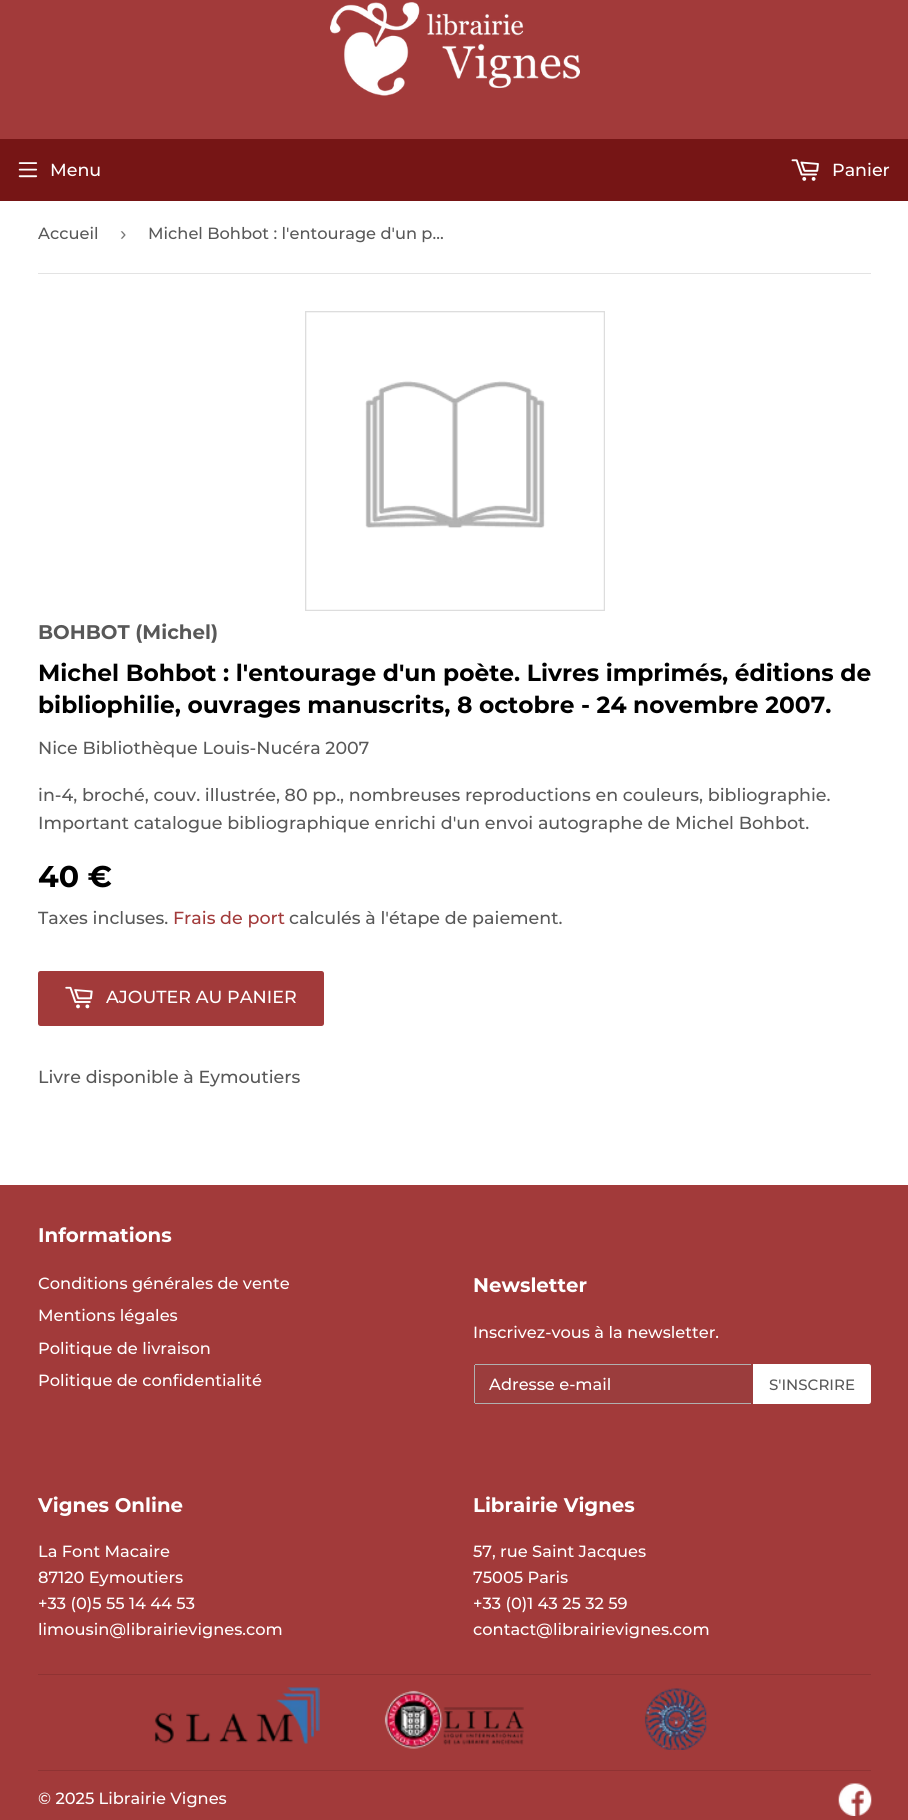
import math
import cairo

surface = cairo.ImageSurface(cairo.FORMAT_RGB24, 908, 1820)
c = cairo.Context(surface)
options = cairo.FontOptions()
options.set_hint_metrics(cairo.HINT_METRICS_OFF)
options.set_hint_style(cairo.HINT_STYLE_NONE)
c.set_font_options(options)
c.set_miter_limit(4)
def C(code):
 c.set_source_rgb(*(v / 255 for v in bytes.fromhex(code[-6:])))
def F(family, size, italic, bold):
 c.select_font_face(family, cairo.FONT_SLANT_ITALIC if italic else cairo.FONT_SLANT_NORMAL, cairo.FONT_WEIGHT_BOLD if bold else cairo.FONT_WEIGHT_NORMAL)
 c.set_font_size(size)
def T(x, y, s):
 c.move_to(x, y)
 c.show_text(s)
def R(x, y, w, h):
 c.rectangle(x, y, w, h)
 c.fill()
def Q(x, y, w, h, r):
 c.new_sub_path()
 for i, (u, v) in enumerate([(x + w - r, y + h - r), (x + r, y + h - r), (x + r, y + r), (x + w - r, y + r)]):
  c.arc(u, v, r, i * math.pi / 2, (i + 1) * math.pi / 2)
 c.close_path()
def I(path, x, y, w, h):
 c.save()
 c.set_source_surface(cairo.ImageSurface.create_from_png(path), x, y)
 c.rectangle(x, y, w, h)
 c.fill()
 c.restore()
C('ffffff')
c.paint()
C('a23a3a')
R(0,0,908,139)
I('1.png',330,2,250,94)
C('761515')
R(0,139,908,62)
I('2.png',18,162,20,16)
F('Montserrat Medium',17.5,0,0)
C('ffffff')
T(50,176,'Menu')
I('3.png',791,159,28,22)
T(832,176,'Panier')
C('e3e3e3')
R(38,273,833,1)
F('Montserrat Medium',16.25,0,0)
C('585858')
T(38,239,'Accueil')
F('Liberation Sans',19,0,0)
C('767676')
T(120,240,'›')
F('Montserrat Medium',16.25,0,0)
C('585858')
T(148,239,'Michel Bohbot : l\'entourage d\'un p…')
I('4.png',305,311,300,300)
F('Montserrat',19.75,0,1)
T(38,639,'BOHBOT (Michel)')
F('Montserrat',23.35,0,1)
C('000000')
T(38,681,'Michel Bohbot : l\'entourage d\'un poète. Livres imprimés, éditions de')
T(38,713,'bibliophilie, ouvrages manuscrits, 8 octobre - 24 novembre 2007.')
F('Montserrat Medium',17.5,0,0)
C('585858')
T(38,754,'Nice Bibliothèque Louis-Nucéra 2007')
T(38,801,'in-4, broché, couv. illustrée, 80 pp., nombreuses reproductions en couleurs, bibliographie.')
T(38,829,'Important catalogue bibliographique enrichi d\'un envoi autographe de Michel Bohbot.')
F('Montserrat',30,0,1)
C('000000')
T(38,887,'40 €')
F('Montserrat Medium',17.5,0,0)
C('585858')
T(38,924,'Taxes incluses.')
C('a23a3a')
T(173,924,'Frais de port')
C('585858')
T(289,924,'calculés à l\'étape de paiement.')
C('a23a3a')
Q(38,971,286,55,2.5)
c.fill()
I('5.png',65,986,28,23)
C('ffffff')
T(106,1003,'AJOUTER AU PANIER')
C('585858')
T(38,1083,'Livre disponible à Eymoutiers')
C('a23a3a')
R(0,1185,908,635)
F('Montserrat',19.75,0,1)
C('ffffff')
T(38,1242,'Informations')
F('Montserrat Medium',16.25,0,0)
T(38,1289,'Conditions générales de vente')
T(38,1321,'Mentions légales')
T(38,1354,'Politique de livraison')
T(38,1386,'Politique de confidentialité')
F('Montserrat',19.75,0,1)
T(473,1292,'Newsletter')
F('Montserrat Medium',16.25,0,0)
T(473,1338,'Inscrivez-vous à la newsletter.')
C('9b3d3d')
Q(474,1364,279,40,2.5)
c.fill()
C('b0b0b0')
R(475,1364,276,1)
R(475,1403,276,1)
R(474,1365,1,38)
C('ffffff')
T(489,1390,'Adresse e-mail')
c.new_path()
c.move_to(753,1364)
c.line_to(868.5,1364)
c.curve_to(870,1364,871,1365,871,1366.5)
c.line_to(871,1401.5)
c.curve_to(871,1403,870,1404,868.5,1404)
c.line_to(753,1404)
c.close_path()
c.fill()
F('Montserrat Medium',15,0,0)
C('585858')
T(769,1390,'S\'INSCRIRE')
F('Montserrat',19.75,0,1)
C('ffffff')
T(38,1512,'Vignes Online')
F('Montserrat Medium',16.25,0,0)
T(38,1557,'La Font Macaire')
T(38,1583,'87120 Eymoutiers')
T(38,1609,'+33 (0)5 55 14 44 53')
T(38,1635,'limousin@librairievignes.com')
F('Montserrat',19.75,0,1)
T(473,1512,'Librairie Vignes')
F('Montserrat Medium',16.25,0,0)
T(473,1557,'57, rue Saint Jacques')
T(473,1583,'75005 Paris')
T(473,1609,'+33 (0)1 43 25 32 59')
T(473,1635,'contact@librairievignes.com')
C('8f3333')
R(38,1674,833,1)
I('6.png',154,1687,166,57)
I('7.png',384,1690,140,59)
I('8.png',644,1688,63,62)
R(38,1770,833,1)
C('ffffff')
T(38,1804,'© 2025 Librairie Vignes')
I('9.png',838,1783,34,33)
surface.write_to_png('o.png')
